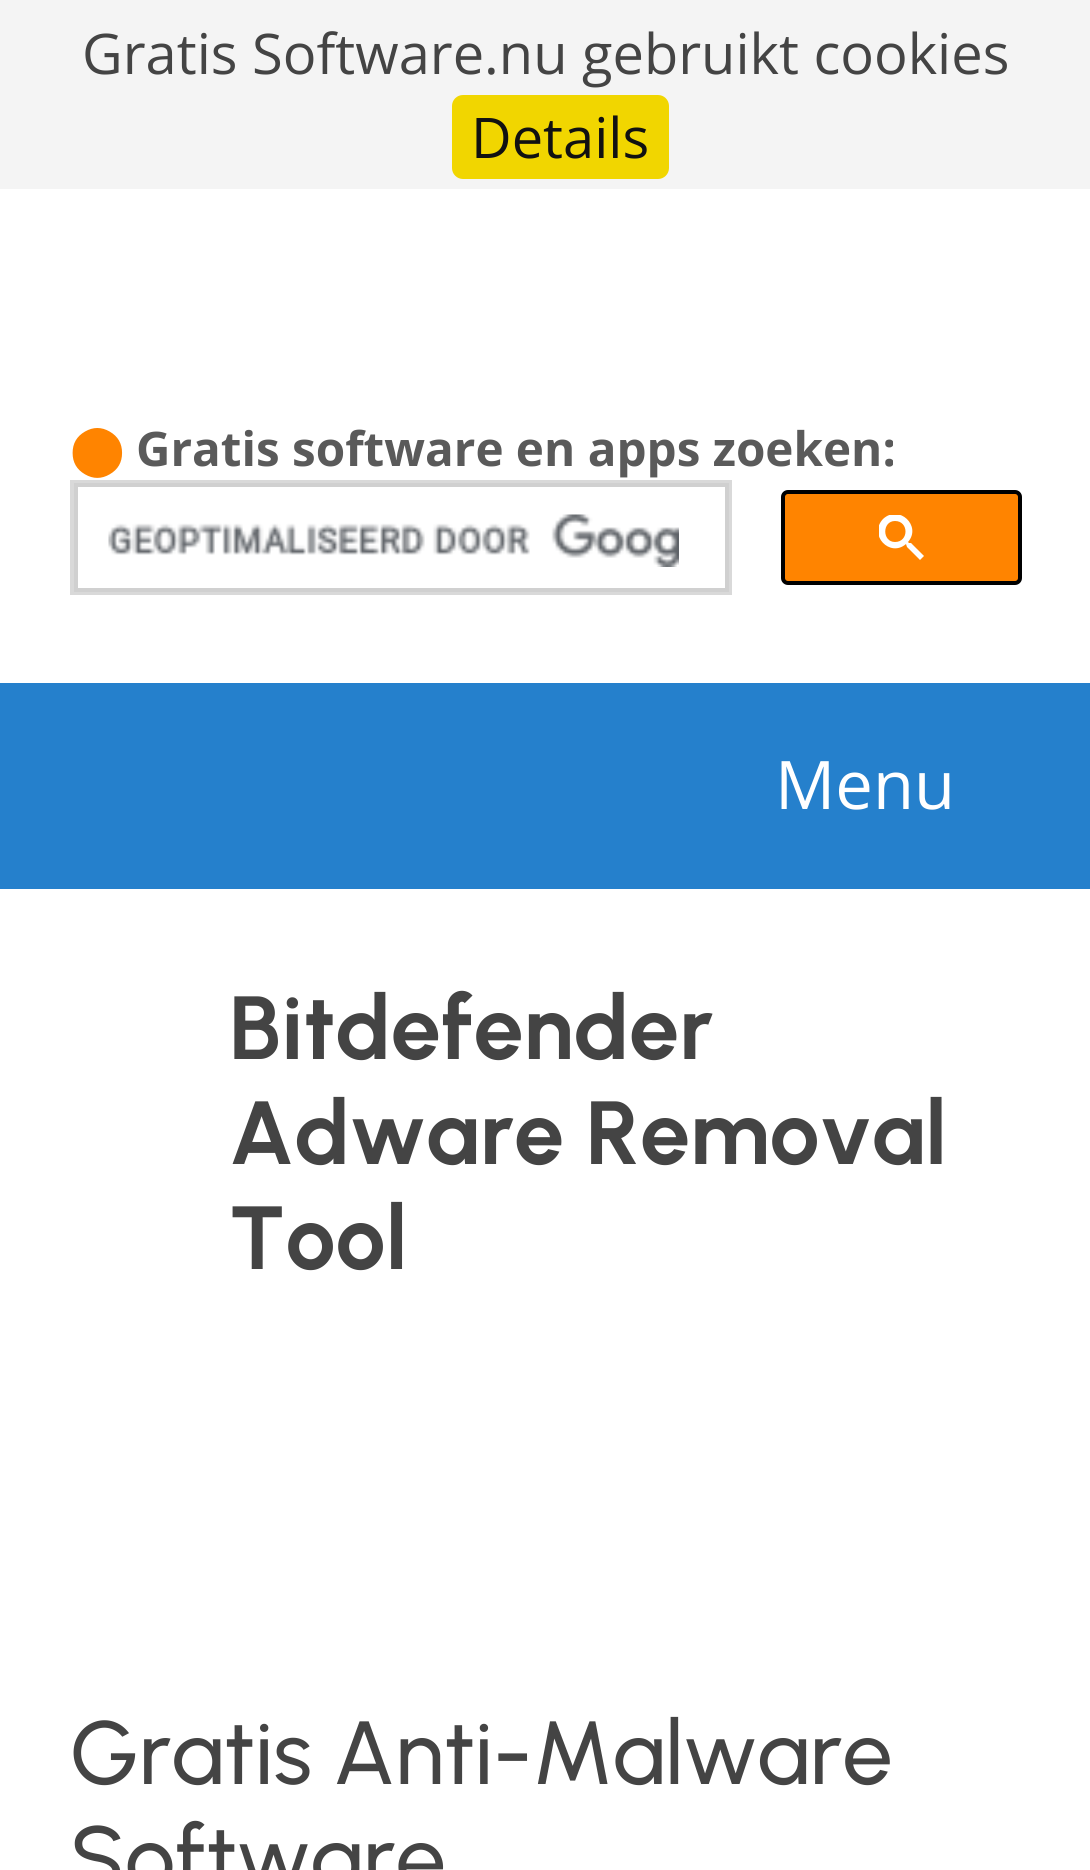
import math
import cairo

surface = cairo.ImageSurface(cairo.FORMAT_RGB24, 1090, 1870)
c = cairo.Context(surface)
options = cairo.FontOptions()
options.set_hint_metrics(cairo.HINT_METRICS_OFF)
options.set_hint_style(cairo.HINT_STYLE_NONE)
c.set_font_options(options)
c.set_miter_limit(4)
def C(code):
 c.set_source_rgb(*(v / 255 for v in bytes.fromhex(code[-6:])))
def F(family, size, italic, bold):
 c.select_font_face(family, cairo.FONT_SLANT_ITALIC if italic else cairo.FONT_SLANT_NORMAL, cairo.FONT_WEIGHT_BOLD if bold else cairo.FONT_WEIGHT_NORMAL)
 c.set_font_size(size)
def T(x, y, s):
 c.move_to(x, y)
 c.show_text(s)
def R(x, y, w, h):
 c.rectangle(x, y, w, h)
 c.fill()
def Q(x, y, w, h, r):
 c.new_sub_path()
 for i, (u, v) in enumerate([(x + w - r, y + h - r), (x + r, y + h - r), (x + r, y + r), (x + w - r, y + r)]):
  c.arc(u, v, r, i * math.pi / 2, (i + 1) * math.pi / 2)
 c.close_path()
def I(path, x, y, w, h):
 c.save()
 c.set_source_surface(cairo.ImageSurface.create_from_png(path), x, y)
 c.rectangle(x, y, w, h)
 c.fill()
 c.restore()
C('f4f4f4')
c.paint()
F('Open Sans',56,0,0)
C('444444')
T(82,74,'Gratis Software.nu gebruikt cookies')
C('f1d600')
Q(452,95,217,84,11)
c.fill()
C('111111')
T(471,158,'Details')
C('ffffff')
R(0,189,1090,494)
F('DejaVu Sans',47.6,0,1)
C('ff8400')
T(70,466,'⬤')
F('Open Sans',47.6,0,1)
C('5a5a5a')
T(136,466,'Gratis software en apps zoeken:')
c.rectangle(72,482,658,111)
C('d9d9d9')
c.set_line_width(4)
c.stroke()
C('d0d0d0')
R(74,483,654,4)
R(725,483,4,109)
R(74,588,654,4)
R(74,483,4,109)
I('1.png',108,514,571,53)
C('ff8400')
Q(783,492,237,91,5)
c.fill_preserve()
C('000000')
c.stroke()
c.save()
c.rectangle(879,515,45,45)
c.clip()
C('ffffff')
c.new_path()
c.move_to(895,542)
c.curve_to(909,542,909,521,895,521)
c.curve_to(882,521,882,542,895,542)
c.close_path()
c.move_to(911,543)
c.line_to(924,556)
c.line_to(920,560)
c.line_to(907,547)
c.line_to(906,544)
c.curve_to(890,558,868,535,883,519)
c.curve_to(899,504,922,526,908,542)
c.line_to(909,543)
c.close_path()
c.fill()
c.restore()
C('2580cc')
R(0,683,1090,206)
F('Open Sans',67,0,0)
C('ffffff')
T(775,809,'Menu')
R(0,889,1090,981)
F('Urbanist',89.5,0,1)
C('444444')
T(229,1059,'Bitdefender')
T(229,1164,'Adware Removal')
T(229,1269,'Tool')
F('Urbanist Medium',89.5,0,0)
T(70,1784,'Gratis Anti-Malware')
T(70,1889,'Software')
surface.write_to_png('o.png')
